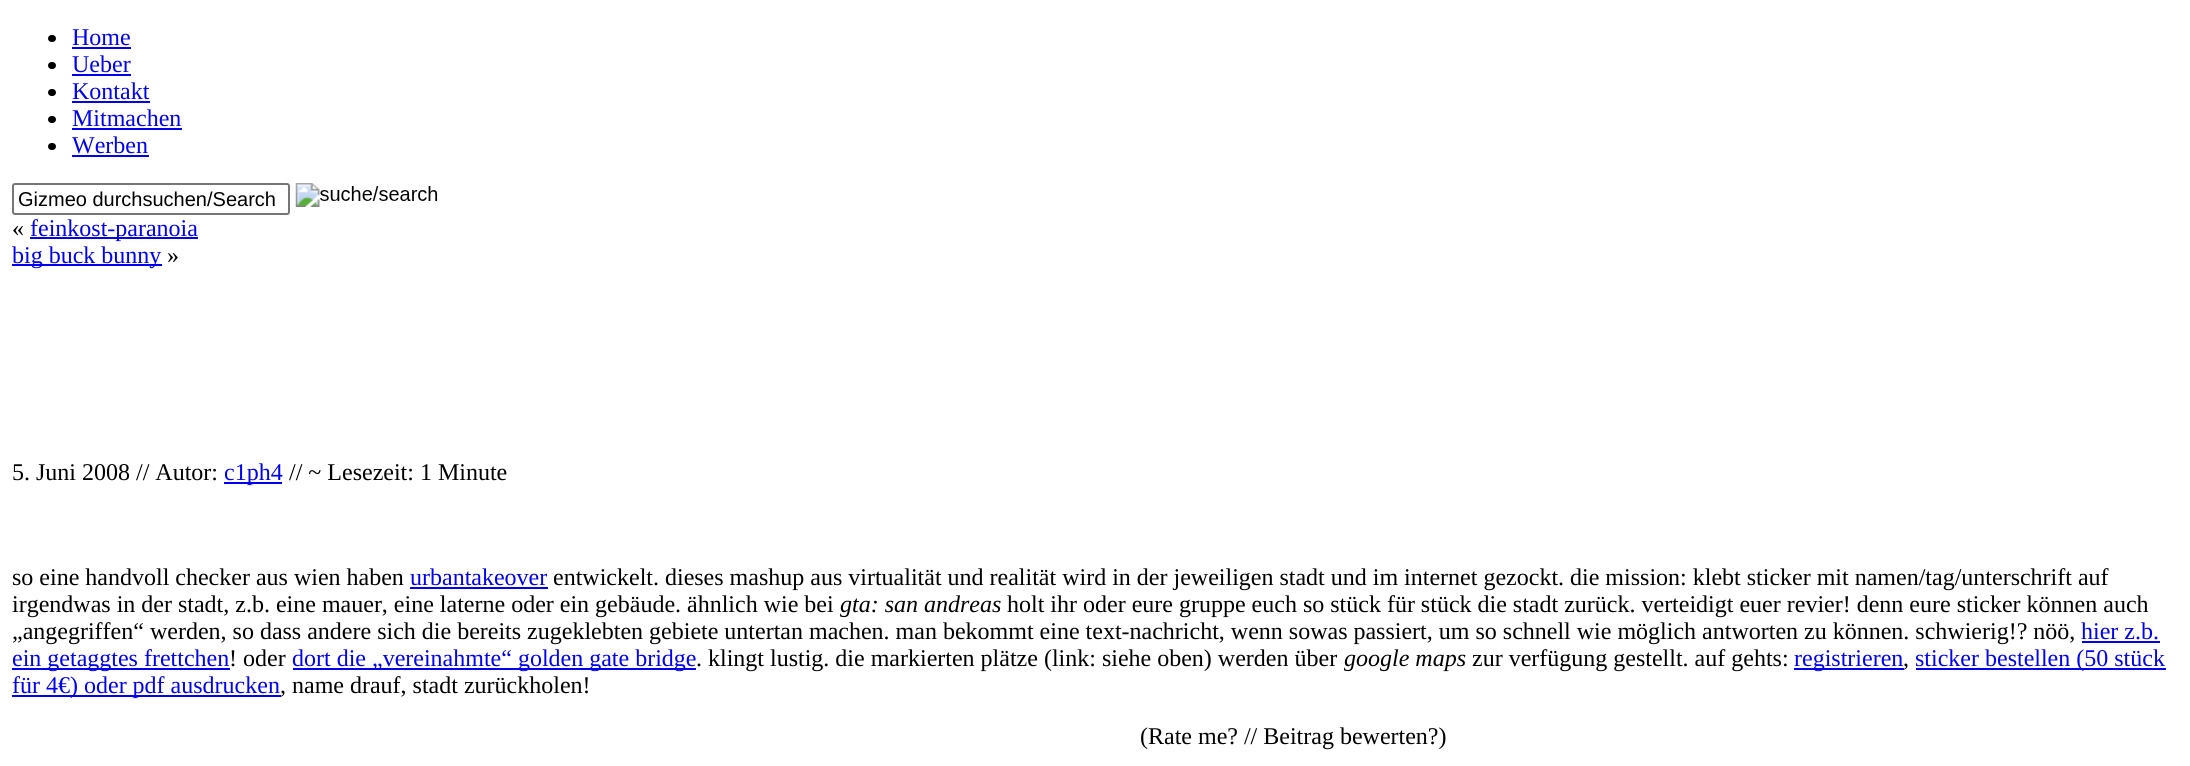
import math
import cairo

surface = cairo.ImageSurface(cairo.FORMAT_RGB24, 2190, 766)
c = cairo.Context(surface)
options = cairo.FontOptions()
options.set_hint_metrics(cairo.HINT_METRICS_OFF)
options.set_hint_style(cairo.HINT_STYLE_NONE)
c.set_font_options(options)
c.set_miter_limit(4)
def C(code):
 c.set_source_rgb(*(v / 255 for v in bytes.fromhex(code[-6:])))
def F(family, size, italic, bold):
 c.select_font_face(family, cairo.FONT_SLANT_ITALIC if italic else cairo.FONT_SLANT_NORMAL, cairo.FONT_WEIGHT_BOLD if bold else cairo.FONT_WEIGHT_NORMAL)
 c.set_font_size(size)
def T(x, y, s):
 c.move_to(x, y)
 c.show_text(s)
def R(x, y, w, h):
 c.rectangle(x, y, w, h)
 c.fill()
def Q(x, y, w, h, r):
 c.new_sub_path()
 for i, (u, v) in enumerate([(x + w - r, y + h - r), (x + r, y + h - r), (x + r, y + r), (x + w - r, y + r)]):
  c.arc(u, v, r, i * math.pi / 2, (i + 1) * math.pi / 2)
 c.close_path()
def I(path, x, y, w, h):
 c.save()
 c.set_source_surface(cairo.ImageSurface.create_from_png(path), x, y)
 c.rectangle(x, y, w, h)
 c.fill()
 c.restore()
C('ffffff')
c.paint()
C('000000')
Q(48,35,8,7,3.5)
c.fill()
F('Liberation Serif',24,0,0)
C('0000ee')
T(72,45,'Home')
R(72,47,59,2)
C('000000')
Q(48,62,8,7,3.5)
c.fill()
C('0000ee')
T(72,72,'Ueber')
R(72,74,59,2)
C('000000')
Q(48,89,8,7,3.5)
c.fill()
C('0000ee')
T(72,99,'Kontakt')
R(72,101,78,2)
C('000000')
Q(48,116,8,7,3.5)
c.fill()
C('0000ee')
T(72,126,'Mitmachen')
R(72,128,110,2)
C('000000')
Q(48,143,8,7,3.5)
c.fill()
C('0000ee')
T(72,153,'Werben')
R(72,155,77,2)
Q(13,184,276,30,2)
C('767676')
c.stroke()
F('Liberation Sans',20,0,0)
C('000000')
T(18,206,'Gizmeo durchsuchen/Search')
I('1.png',295,183,143,24)
F('Liberation Serif',24,0,0)
T(12,236,'«')
C('0000ee')
R(30,237,168,2)
T(30,236,'feinkost-paranoia')
R(12,264,150,2)
T(12,263,'big buck bunny')
C('000000')
T(167,263,'»')
T(12,480,'5. Juni 2008 // Autor:')
C('0000ee')
R(224,482,58,2)
T(224,480,'c1ph4')
C('000000')
T(289,480,'// ~ Lesezeit: 1 Minute')
T(12,585,'so eine handvoll checker aus wien haben')
C('0000ee')
T(410,585,'urbantakeover')
R(410,587,138,2)
C('000000')
T(553,585,'entwickelt. dieses mashup aus virtualität und realität wird in der jeweiligen stadt und im internet gezockt. die mission: klebt sticker mit namen/tag/unterschrift auf')
T(12,612,'irgendwas in der stadt, z.b. eine mauer, eine laterne oder ein gebäude. ähnlich wie bei')
F('Liberation Serif',24,1,0)
T(840,612,'gta: san andreas')
F('Liberation Serif',24,0,0)
T(1007,612,'holt ihr oder eure gruppe euch so stück für stück die stadt zurück. verteidigt euer revier! denn eure sticker können auch')
T(12,639,'„angegriffen“ werden, so dass andere sich die bereits zugeklebten gebiete untertan machen. man bekommt eine text-nachricht, wenn sowas passiert, um so schnell wie möglich antworten zu können. schwierig!? nöö,')
C('0000ee')
T(2081,639,'hier z.b.')
R(2082,641,78,2)
R(12,668,218,2)
T(12,666,'ein getaggtes frettchen')
C('000000')
T(229,666,'! oder')
C('0000ee')
R(293,668,403,2)
T(292,666,'dort die „vereinahmte“ golden gate bridge')
C('000000')
T(696,666,'. klingt lustig. die markierten plätze (link: siehe oben) werden über')
F('Liberation Serif',24,1,0)
T(1344,666,'google maps')
F('Liberation Serif',24,0,0)
T(1472,666,'zur verfügung gestellt. auf gehts:')
C('0000ee')
R(1794,668,110,2)
T(1794,666,'registrieren')
C('000000')
T(1903,666,',')
C('0000ee')
R(1916,668,250,2)
T(1915,666,'sticker bestellen (50 stück')
R(12,695,269,2)
T(12,693,'für 4€) oder pdf ausdrucken')
C('000000')
T(280,693,', name drauf, stadt zurückholen!')
T(1140,744,'(Rate me? // Beitrag bewerten?)')
surface.write_to_png('o.png')
